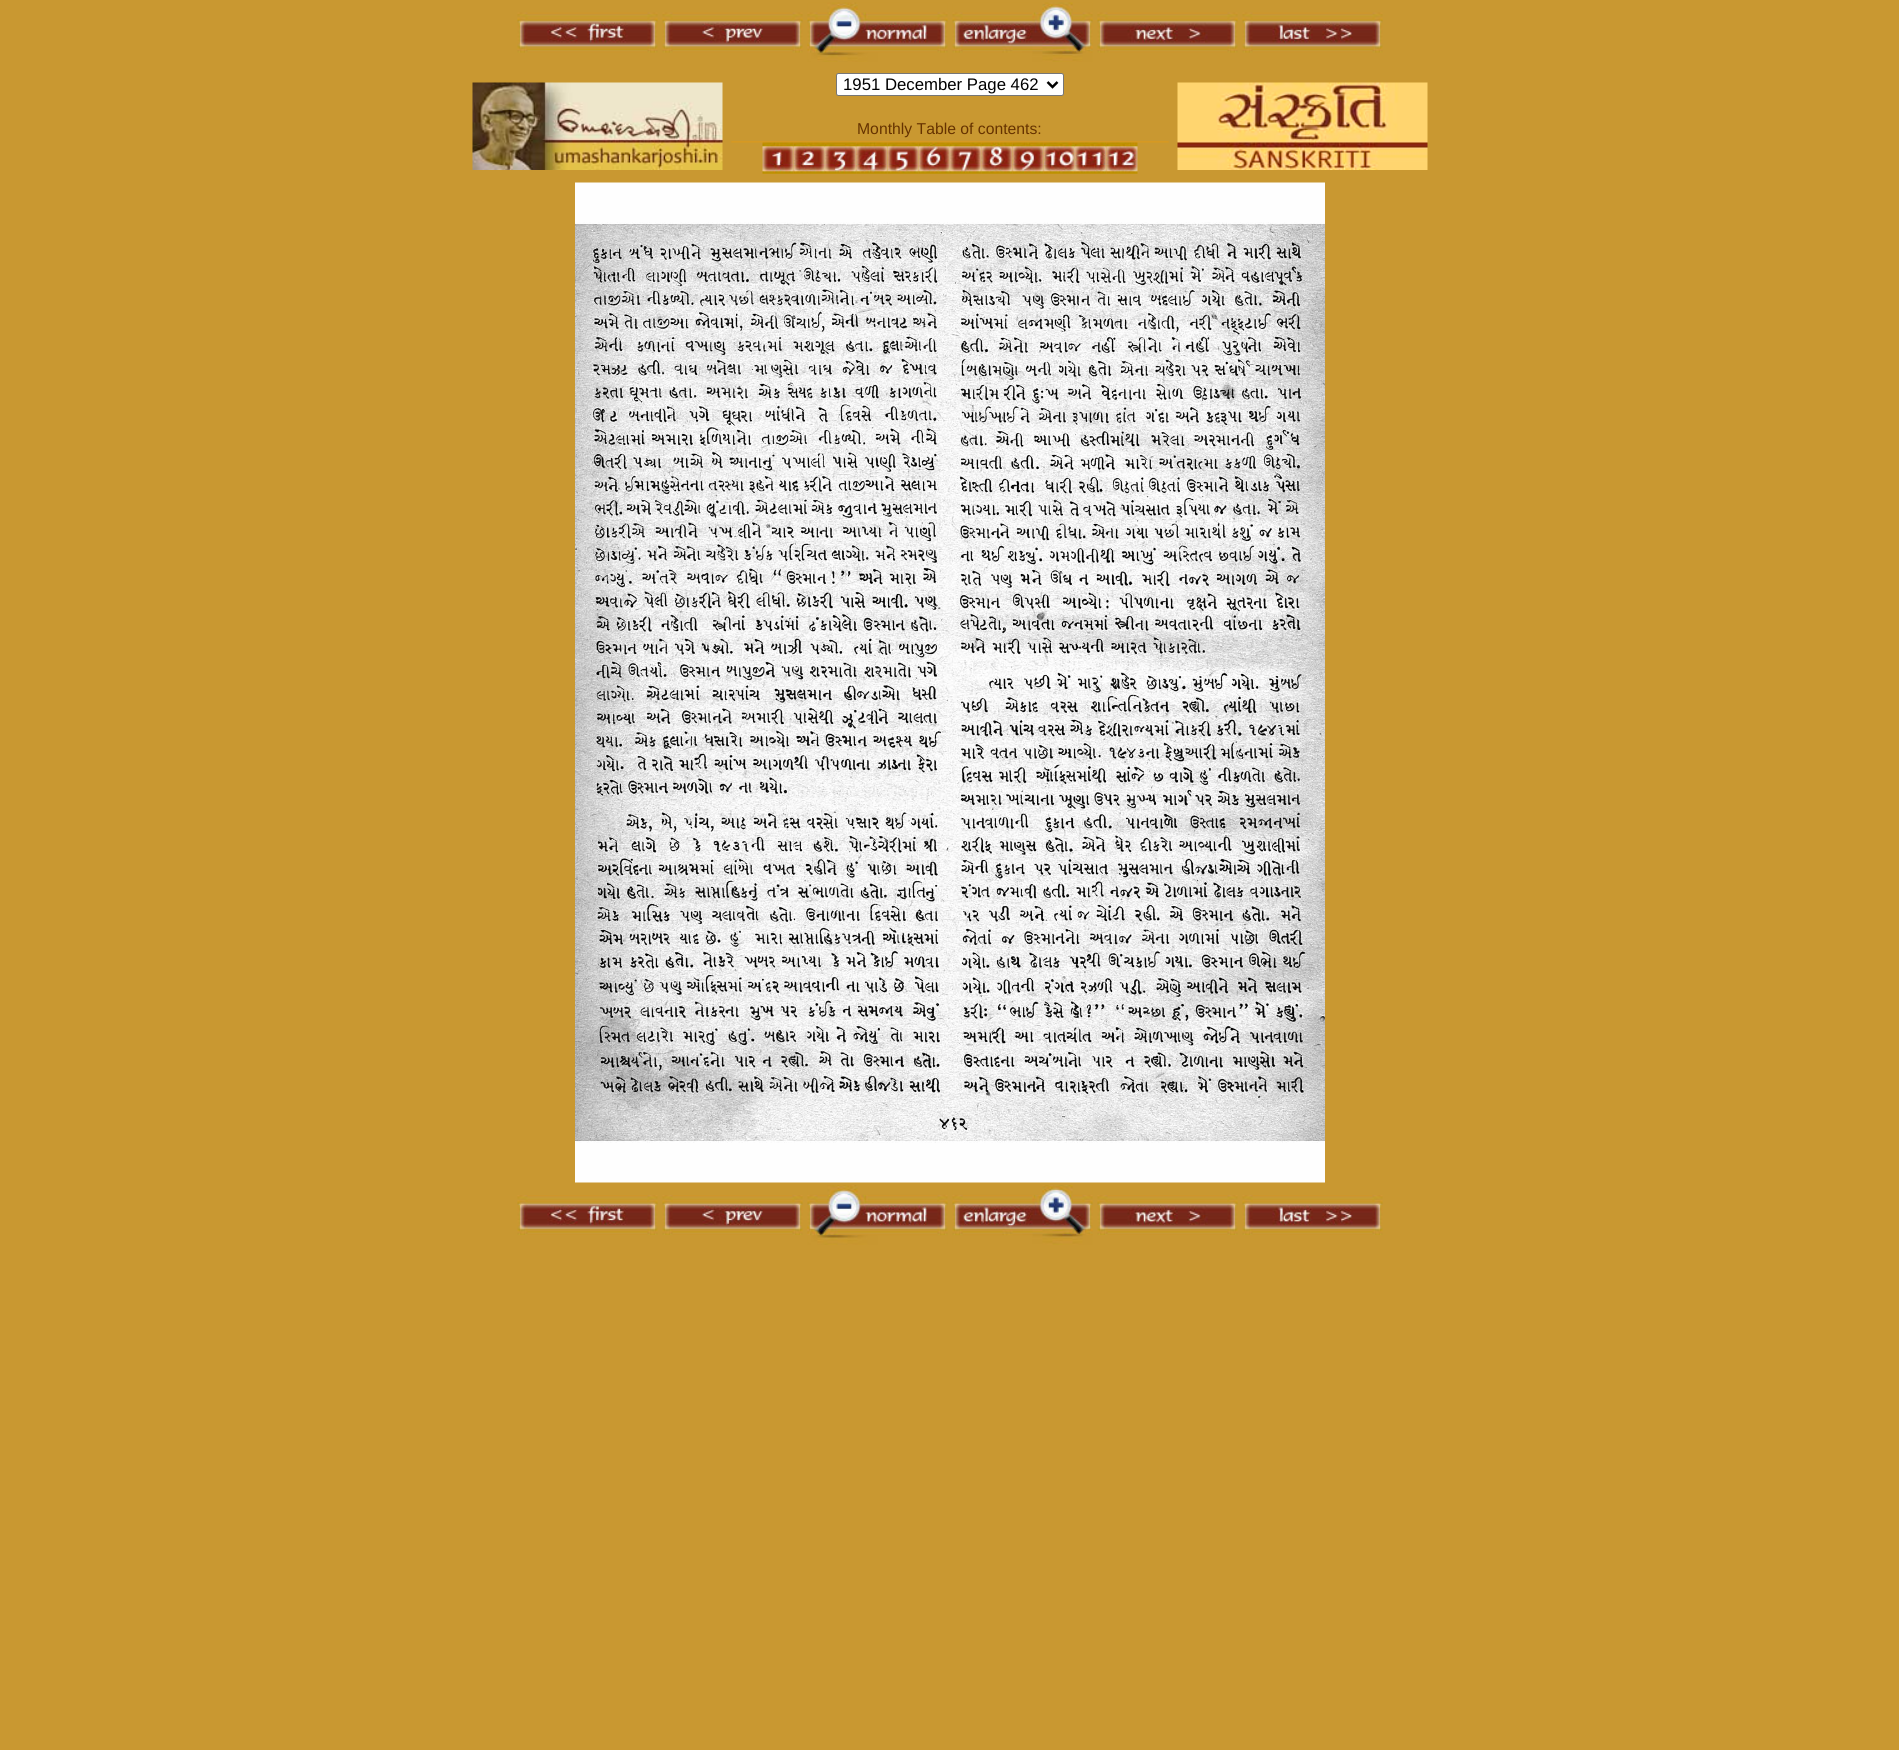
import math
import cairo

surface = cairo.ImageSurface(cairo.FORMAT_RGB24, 1899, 1750)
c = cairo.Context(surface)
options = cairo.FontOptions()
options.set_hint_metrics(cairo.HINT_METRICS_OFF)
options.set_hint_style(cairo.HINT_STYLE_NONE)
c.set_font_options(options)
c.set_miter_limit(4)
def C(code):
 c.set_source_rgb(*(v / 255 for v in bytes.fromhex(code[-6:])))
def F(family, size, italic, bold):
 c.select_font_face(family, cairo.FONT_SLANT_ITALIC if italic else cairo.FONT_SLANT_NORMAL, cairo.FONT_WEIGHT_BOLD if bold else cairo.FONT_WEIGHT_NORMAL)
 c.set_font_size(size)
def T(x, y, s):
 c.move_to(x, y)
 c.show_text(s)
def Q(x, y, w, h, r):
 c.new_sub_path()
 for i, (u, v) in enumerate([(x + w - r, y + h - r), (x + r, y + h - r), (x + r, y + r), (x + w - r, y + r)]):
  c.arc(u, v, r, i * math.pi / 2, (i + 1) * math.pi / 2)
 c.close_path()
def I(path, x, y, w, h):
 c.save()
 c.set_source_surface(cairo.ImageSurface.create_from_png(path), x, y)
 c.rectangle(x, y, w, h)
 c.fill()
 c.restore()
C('c99831')
c.paint()
I('1.png',517,12,141,41)
I('2.png',662,12,141,41)
I('3.png',807,2,141,60)
I('4.png',952,2,141,60)
I('5.png',1097,12,141,41)
I('6.png',1242,12,141,41)
I('7.png',472,82,251,88)
C('ffffff')
Q(836.5,73.5,227,22,2)
c.fill_preserve()
C('767676')
c.set_line_width(1)
c.stroke()
c.new_path()
c.move_to(1047.5,82)
c.line_to(1052.5,87)
c.line_to(1057.5,82)
C('000000')
c.set_line_width(2.5)
c.stroke()
F('Liberation Sans',16.75,0,0)
T(843,90,'1951 December Page 462')
F('Liberation Sans',15.75,0,0)
C('663300')
T(857,134,'Monthly Table of contents:')
I('8.png',731,141,438,2)
I('9.png',762,142,32,32)
I('10.png',793,142,32,32)
I('11.png',825,142,32,32)
I('12.png',856,142,32,32)
I('13.png',887,142,32,32)
I('14.png',918,142,32,32)
I('15.png',950,142,32,32)
I('16.png',981,142,32,32)
I('17.png',1012,142,32,32)
I('18.png',1043,142,32,32)
I('19.png',1075,142,32,32)
I('20.png',1106,142,32,32)
I('21.png',1177,82,251,88)
I('22.png',575,182,750,1001)
I('23.png',517,1195,141,40)
I('24.png',662,1195,141,40)
I('25.png',807,1185,141,60)
I('26.png',952,1185,141,60)
I('27.png',1097,1195,141,40)
I('28.png',1242,1195,141,40)
surface.write_to_png('o.png')
